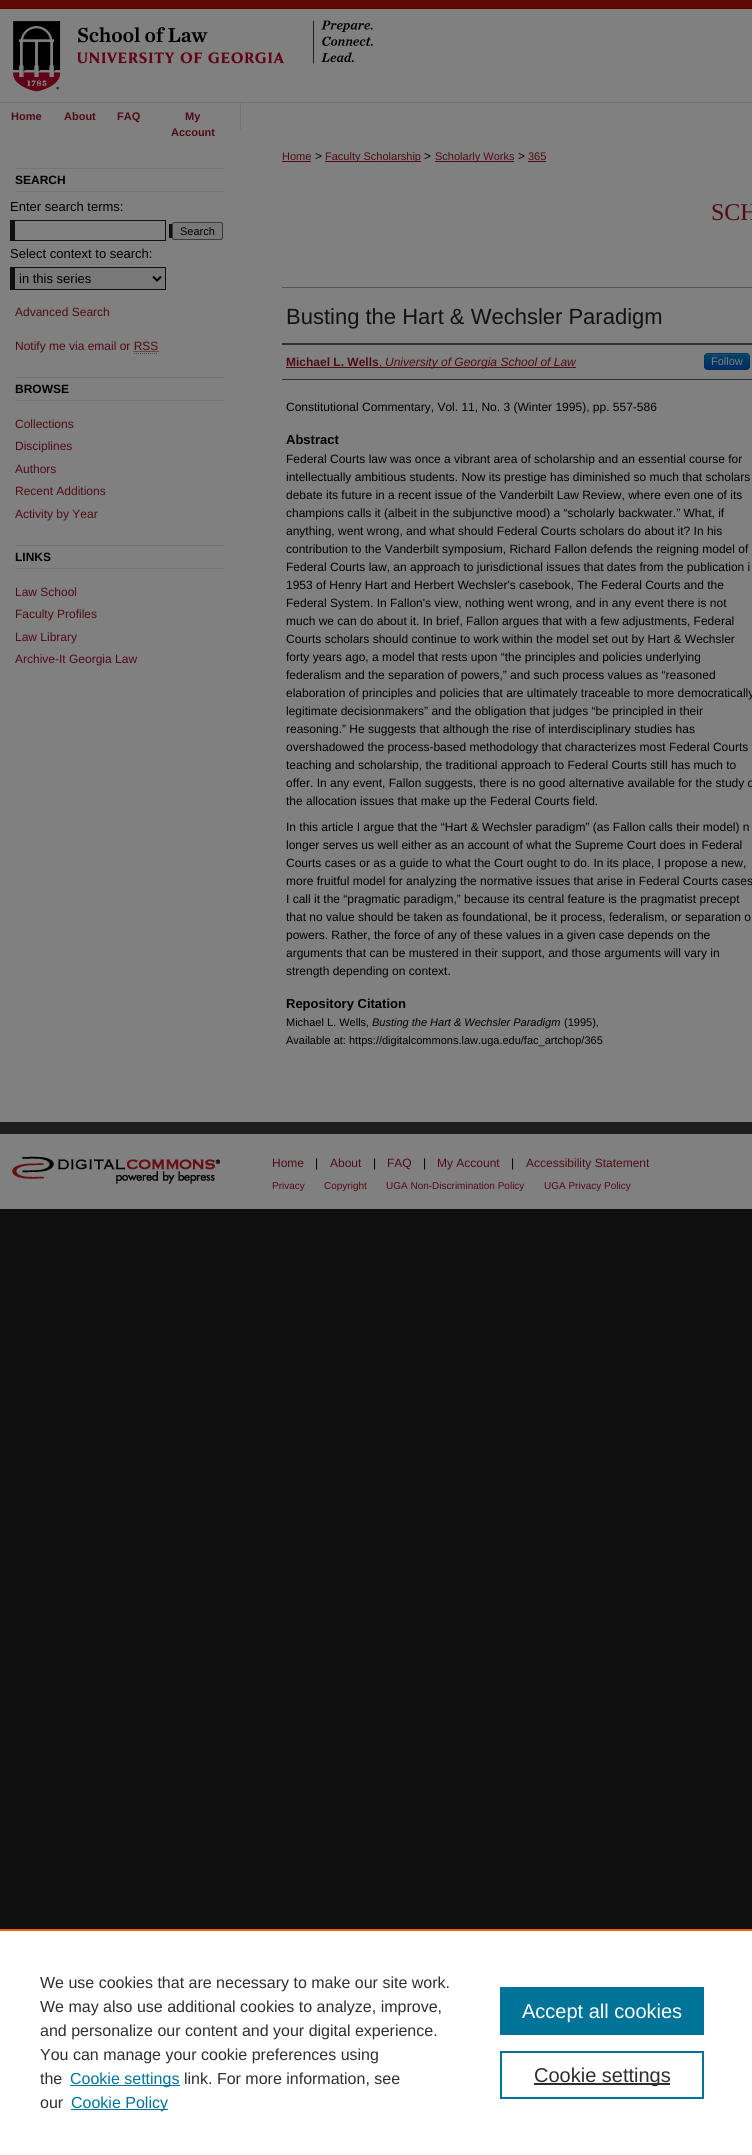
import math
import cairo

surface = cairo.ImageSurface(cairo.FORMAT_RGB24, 752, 2155)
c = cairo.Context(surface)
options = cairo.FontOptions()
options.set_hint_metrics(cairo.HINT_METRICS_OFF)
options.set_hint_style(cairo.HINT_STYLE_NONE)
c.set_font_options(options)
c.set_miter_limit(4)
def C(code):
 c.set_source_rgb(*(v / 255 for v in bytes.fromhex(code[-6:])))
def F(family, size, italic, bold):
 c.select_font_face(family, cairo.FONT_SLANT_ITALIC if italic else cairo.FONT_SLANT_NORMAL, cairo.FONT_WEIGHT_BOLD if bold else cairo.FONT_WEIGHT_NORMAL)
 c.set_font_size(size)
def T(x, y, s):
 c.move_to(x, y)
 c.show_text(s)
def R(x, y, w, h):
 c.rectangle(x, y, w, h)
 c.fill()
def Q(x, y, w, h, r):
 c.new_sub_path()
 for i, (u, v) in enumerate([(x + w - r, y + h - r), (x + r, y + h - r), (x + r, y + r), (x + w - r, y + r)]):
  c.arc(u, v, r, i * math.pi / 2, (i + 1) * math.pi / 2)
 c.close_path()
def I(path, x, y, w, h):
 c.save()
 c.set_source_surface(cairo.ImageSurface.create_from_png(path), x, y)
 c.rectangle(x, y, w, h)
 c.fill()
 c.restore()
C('0f0f10')
c.paint()
C('737373')
R(0,102,752,1)
I('1.png',0,0,752,102)
C('808080')
R(0,103,752,1019)
C('737373')
R(240,103,1,27)
F('Liberation Sans',11,0,1)
C('4e0c17')
T(11,120,'Home')
T(64,120,'About')
T(117,120,'FAQ')
T(185,120,'My')
T(171,136,'Account')
C('737373')
R(15,168,210,1)
R(15,191,210,1)
F('Liberation Sans',12,0,1)
C('000000')
T(15,184,'SEARCH')
F('Liberation Sans',13,0,0)
T(10,211,'Enter search terms:')
C('0f0f10')
R(10,220,156,21)
R(169,224,3,14)
C('808080')
R(15,221,150,19)
C('787878')
Q(172.5,222.5,50,17,1.5)
c.fill_preserve()
C('3b3b3b')
c.set_line_width(1)
c.stroke()
F('Liberation Sans',11,0,0)
C('000000')
T(180,235,'Search')
F('Liberation Sans',13,0,0)
T(10,258,'Select context to search:')
C('787878')
R(15,268,150,21)
C('0f0f10')
R(10,267,156,1)
R(165,267,1,23)
R(10,289,156,1)
R(10,267,5,23)
c.new_path()
c.move_to(153,276.5)
c.line_to(157,280.5)
c.line_to(161,276.5)
C('000000')
c.set_line_width(2)
c.stroke()
T(19,283,'in this series')
F('Liberation Sans',12,0,0)
C('4e0c17')
T(15,316,'Advanced Search')
T(15,350,'Notify me via email or RSS')
c.new_path()
c.move_to(133.5,351.5)
c.line_to(158.5,351.5)
c.set_line_width(1)
c.set_dash([1,1])
c.stroke()
c.new_path()
c.move_to(134,353.5)
c.line_to(158,353.5)
C('4d4d4d')
c.stroke()
C('737373')
R(15,377,210,1)
R(15,400,210,1)
F('Liberation Sans',12,0,1)
C('000000')
T(15,393,'BROWSE')
F('Liberation Sans',12,0,0)
C('4e0c17')
T(15,428,'Collections')
T(15,450,'Disciplines')
T(15,473,'Authors')
T(15,495,'Recent Additions')
T(15,518,'Activity by Year')
C('737373')
R(15,545,210,1)
R(15,568,210,1)
F('Liberation Sans',12,0,1)
C('000000')
T(15,561,'LINKS')
F('Liberation Sans',12,0,0)
C('4e0c17')
T(15,596,'Law School')
T(15,618,'Faculty Profiles')
T(15,641,'Law Library')
T(15,663,'Archive-It Georgia Law')
F('Liberation Sans',11,0,0)
T(282,160,'Home')
R(282,161,29,1)
F('Liberation Sans',12,0,0)
C('000000')
T(315,160,'>')
C('4e0c17')
R(325,161,96,1)
F('Liberation Sans',11,0,0)
T(325,160,'Faculty Scholarship')
F('Liberation Sans',12,0,0)
C('000000')
T(424,160,'>')
C('4e0c17')
R(435,161,79,1)
F('Liberation Sans',11,0,0)
T(435,160,'Scholarly Works')
F('Liberation Sans',12,0,0)
C('000000')
T(518,160,'>')
F('Liberation Sans',11,0,0)
C('4e0c17')
T(528,160,'365')
R(528,161,18,1)
F('Liberation Serif',24,0,0)
T(711,220,'SCH')
C('555555')
R(282,287,470,1)
F('Liberation Sans',22,0,0)
C('111111')
T(286,324,'Busting the Hart & Wechsler Paradigm')
C('333333')
R(282,343,470,2)
R(282,379,470,1)
F('Liberation Sans',12,0,1)
C('4e0c17')
T(286,366,'Michael L. Wells')
R(286,367,290,1)
F('Liberation Sans',12,0,0)
T(379,366,',')
F('Liberation Sans',12,1,0)
T(385,366,'University of Georgia School of Law')
C('003a66')
Q(704,353,46,17,4)
c.fill()
c.save()
Q(704,353,46,17,4)
c.clip()
gradient = cairo.LinearGradient(727,354,727,369)
gradient.add_color_stop_rgba(0,0,0.267,0.4,1)
gradient.add_color_stop_rgba(1,0,0.169,0.4,1)
c.set_source(gradient)
R(704,354,46,15)
c.restore()
c.set_source_rgba(0.502,0.502,0.502,0.2)
c.new_path()
c.move_to(708,355)
c.line_to(733,355)
c.curve_to(747,355,749,351,749,366)
c.curve_to(749,355,752,354,740,354)
c.line_to(714,354)
c.curve_to(707,354,705,353,705,360)
c.line_to(705,367)
c.curve_to(705,364,704,355,708,355)
c.close_path()
c.fill()
c.new_path()
c.move_to(748.5,368.5)
c.curve_to(748,369,747,369.5,746,369.5)
c.line_to(708,369.5)
c.curve_to(707,369.5,706,369,705.5,368.5)
c.set_source_rgba(0,0,0,0.25)
c.set_dash([])
c.stroke()
c.new_path()
c.move_to(705.5,368.5)
c.curve_to(704,366.5,704.5,363.5,704.5,361.5)
c.curve_to(704.5,352.5,705,353.5,714.5,353.5)
c.line_to(739.5,353.5)
c.curve_to(749,353.5,749.5,352.5,749.5,361.5)
c.curve_to(749.5,363.5,750,366.5,748.5,368.5)
c.set_source_rgba(0,0,0,0.1)
c.stroke()
F('Liberation Sans',11,0,0)
C('808080')
T(711,365,'Follow')
F('Liberation Sans',12,0,0)
C('000000')
T(286,411,'Constitutional Commentary, Vol. 11, No. 3 (Winter 1995), pp. 557-586')
F('Liberation Sans',13,0,1)
T(286,444,'Abstract')
F('Liberation Sans',12,0,0)
T(286,463,'Federal Courts law was once a vibrant area of scholarship and an essential course for')
T(286,481,'intellectually ambitious students. Now its prestige has diminished so much that scholars')
T(286,499,'debate its future in a recent issue of the Vanderbilt Law Review, where even one of its')
T(286,517,'champions calls it (albeit in the subjunctive mood) a “scholarly backwater.” What, if')
T(286,535,'anything, went wrong, and what should Federal Courts scholars do about it? In his')
T(286,553,'contribution to the Vanderbilt symposium, Richard Fallon defends the reigning model of')
T(286,571,'Federal Courts law, an approach to jurisdictional issues that dates from the publication i')
T(286,589,'1953 of Henry Hart and Herbert Wechsler\'s casebook, The Federal Courts and the')
T(286,607,'Federal System. In Fallon\'s view, nothing went wrong, and in any event there is not')
T(286,625,'much we can do about it. In brief, Fallon argues that with a few adjustments, Federal')
T(286,643,'Courts scholars should continue to work within the model set out by Hart & Wechsler')
T(286,661,'forty years ago, a model that rests upon “the principles and policies underlying')
T(286,679,'federalism and the separation of powers,” and such process values as “reasoned')
T(286,697,'elaboration of principles and policies that are ultimately traceable to more democratically')
T(286,715,'legitimate decisionmakers” and the obligation that judges “be principled in their')
T(286,733,'reasoning.” He suggests that although the rise of interdisciplinary studies has')
T(286,751,'overshadowed the process-based methodology that characterizes most Federal Courts')
T(286,769,'teaching and scholarship, the traditional approach to Federal Courts still has much to')
T(286,787,'offer. In any event, Fallon suggests, there is no good alternative available for the study o')
T(286,805,'the allocation issues that make up the Federal Courts field.')
T(286,831,'In this article I argue that the “Hart & Wechsler paradigm” (as Fallon calls their model) n')
T(286,849,'longer serves us well either as an account of what the Supreme Court does in Federal')
T(286,867,'Courts cases or as a guide to what the Court ought to do. In its place, I propose a new,')
T(286,885,'more fruitful model for analyzing the normative issues that arise in Federal Courts cases')
T(286,903,'I call it the “pragmatic paradigm,” because its central feature is the pragmatist precept')
T(286,921,'that no value should be taken as foundational, be it process, federalism, or separation o')
T(286,939,'powers. Rather, the force of any of these values in a given case depends on the')
T(286,957,'arguments that can be mustered in their support, and those arguments will vary in')
T(286,975,'strength depending on context.')
F('Liberation Sans',13,0,1)
T(286,1008,'Repository Citation')
F('Liberation Sans',11,0,0)
T(286,1026,'Michael L. Wells,')
F('Liberation Sans',11,1,0)
T(372,1026,'Busting the Hart & Wechsler Paradigm')
F('Liberation Sans',11,0,0)
T(564,1026,'(1995),')
T(286,1044,'Available at: https://digitalcommons.law.uga.edu/fac_artchop/365')
C('808080')
R(0,1134,752,75)
C('1d1d1d')
R(0,1122,752,12)
I('2.png',12,1156,208,28)
F('Liberation Sans',12,0,0)
C('4e0c17')
T(272,1167,'Home')
C('000000')
T(315,1167,'|')
C('4e0c17')
T(330,1167,'About')
C('000000')
T(373,1167,'|')
C('4e0c17')
T(387,1167,'FAQ')
C('000000')
T(423,1167,'|')
C('4e0c17')
T(437,1167,'My Account')
C('000000')
T(511,1167,'|')
C('4e0c17')
T(526,1167,'Accessibility Statement')
F('Liberation Sans',10,0,0)
T(272,1189,'Privacy')
T(324,1189,'Copyright')
T(386,1189,'UGA Non-Discrimination Policy')
T(544,1189,'UGA Privacy Policy')
C('ffffff')
R(0,1931,752,224)
C('eb6500')
R(0,1929,752,2)
F('Liberation Sans',16,0,0)
C('2e2e2e')
T(40,1988,'We use cookies that are necessary to make our site work.')
T(40,2012,'We may also use additional cookies to analyze, improve,')
T(40,2036,'and personalize our content and your digital experience.')
T(40,2060,'You can manage your cookie preferences using')
T(40,2084,'the')
C('007398')
R(70,2085,110,1)
T(70,2084,'Cookie settings')
C('2e2e2e')
T(184,2084,'link. For more information, see')
T(40,2108,'our')
C('007398')
R(71,2109,97,1)
T(71,2108,'Cookie Policy')
R(500,1987,204,48)
F('Liberation Sans',20,0,0)
C('ffffff')
T(522,2018,'Accept all cookies')
c.rectangle(501,2052,202,46)
C('007398')
c.set_line_width(2)
c.stroke()
C('2e2e2e')
R(534,2083,136,2)
T(534,2082,'Cookie settings')
surface.write_to_png('o.png')
